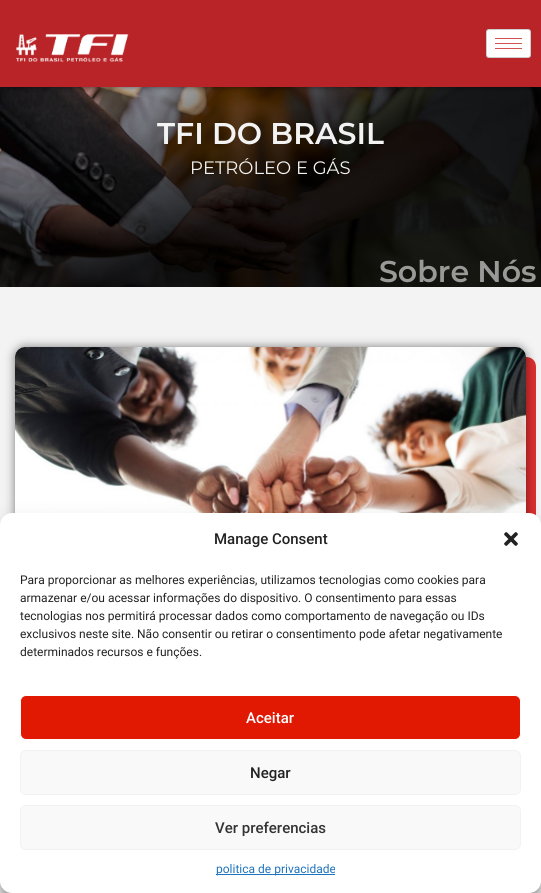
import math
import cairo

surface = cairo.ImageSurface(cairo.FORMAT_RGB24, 541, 893)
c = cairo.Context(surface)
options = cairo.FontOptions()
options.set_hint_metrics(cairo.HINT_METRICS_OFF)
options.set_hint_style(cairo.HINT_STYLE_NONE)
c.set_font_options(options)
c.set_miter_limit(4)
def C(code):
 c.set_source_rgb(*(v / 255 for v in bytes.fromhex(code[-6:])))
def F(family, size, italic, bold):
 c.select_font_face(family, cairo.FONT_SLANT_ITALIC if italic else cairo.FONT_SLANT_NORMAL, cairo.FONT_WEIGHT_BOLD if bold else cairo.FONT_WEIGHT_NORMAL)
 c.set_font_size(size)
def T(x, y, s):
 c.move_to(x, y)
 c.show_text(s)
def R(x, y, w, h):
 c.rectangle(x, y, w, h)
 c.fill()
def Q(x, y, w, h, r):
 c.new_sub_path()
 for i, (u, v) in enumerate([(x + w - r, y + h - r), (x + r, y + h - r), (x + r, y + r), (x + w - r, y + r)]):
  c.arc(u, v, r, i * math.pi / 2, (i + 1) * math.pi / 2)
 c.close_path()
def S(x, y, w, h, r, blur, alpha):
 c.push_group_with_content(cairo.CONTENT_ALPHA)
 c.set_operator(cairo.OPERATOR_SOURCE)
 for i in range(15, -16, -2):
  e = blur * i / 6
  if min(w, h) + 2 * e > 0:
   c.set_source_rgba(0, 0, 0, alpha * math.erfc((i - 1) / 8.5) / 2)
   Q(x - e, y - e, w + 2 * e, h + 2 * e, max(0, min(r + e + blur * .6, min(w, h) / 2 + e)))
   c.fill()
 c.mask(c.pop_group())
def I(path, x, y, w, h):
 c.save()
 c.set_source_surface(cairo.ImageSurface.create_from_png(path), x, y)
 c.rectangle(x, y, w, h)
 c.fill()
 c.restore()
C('ffffff')
c.paint()
I('2.png',0,87,541,200)
C('000000')
S(0,0,541,87,0,3,.5)
C('b82427')
R(0,0,541,87)
I('1.png',15,34,114,28)
C('ffffff')
Q(486,29,45,29,3)
c.fill()
Q(486.5,29.5,44,28,2.5)
c.set_source_rgba(0,0,0,0.2)
c.set_line_width(1)
c.stroke()
C('d35252')
R(495,38,27,1)
R(495,43,27,1)
R(495,48,27,1)
F('Montserrat SemiBold',30,0,0)
C('f3f3f3')
T(157,144,'TFI DO BRASIL')
F('Montserrat',18,0,0)
T(190,174,'PETRÓLEO E GÁS')
F('Montserrat SemiBold',30,0,0)
C('999a98')
T(379,282,'Sobre Nós')
C('f3f3f3')
R(0,287,541,606)
C('dc2f2f')
c.new_path()
c.move_to(25,687)
c.curve_to(25,693,29,697,35,697)
c.line_to(526,697)
c.curve_to(532,697,536,693,536,687)
c.line_to(536,367)
c.curve_to(536,361,532,357,526,357)
c.line_to(526,677)
c.curve_to(526,683,522,687,516,687)
c.close_path()
c.fill()
C('000000')
S(15,347,511,340,10,5,.5)
I('3.png',15,347,511,166)
S(0,519,541,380,12,3,.23)
S(0,523,541,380,12,10,.19)
C('ffffff')
Q(0,513,541,380,12)
c.fill()
F('Roboto Medium',15,0,0)
C('222222')
T(214,544,'Manage Consent')
I('4.png',504,532,14,14)
F('Roboto',12,0,0)
T(20,584,'Para proporcionar as melhores experiências, utilizamos tecnologias como cookies para')
T(20,602,'armazenar e/ou acessar informações do dispositivo. O consentimento para essas')
T(20,620,'tecnologias nos permitirá processar dados como comportamento de navegação ou IDs')
T(20,638,'exclusivos neste site. Não consentir ou retirar o consentimento pode afetar negativamente')
T(20,656,'determinados recursos e funções.')
C('e11903')
Q(20.5,695.5,500,44,5.5)
c.fill_preserve()
C('fefeff')
c.stroke()
F('Roboto Medium',15,0,0)
C('ffffff')
T(246,723,'Aceitar')
C('f9f9f9')
Q(20.5,750.5,500,44,5.5)
c.fill_preserve()
C('f2f2f2')
c.stroke()
C('222222')
T(250,778,'Negar')
C('f9f9f9')
Q(20.5,805.5,500,44,5.5)
c.fill_preserve()
C('f2f2f2')
c.stroke()
C('333333')
T(215,833,'Ver preferencias')
C('1e73be')
R(216,874,119,1)
F('Roboto',12,0,0)
T(216,873,'politica de privacidade')
surface.write_to_png('o.png')
